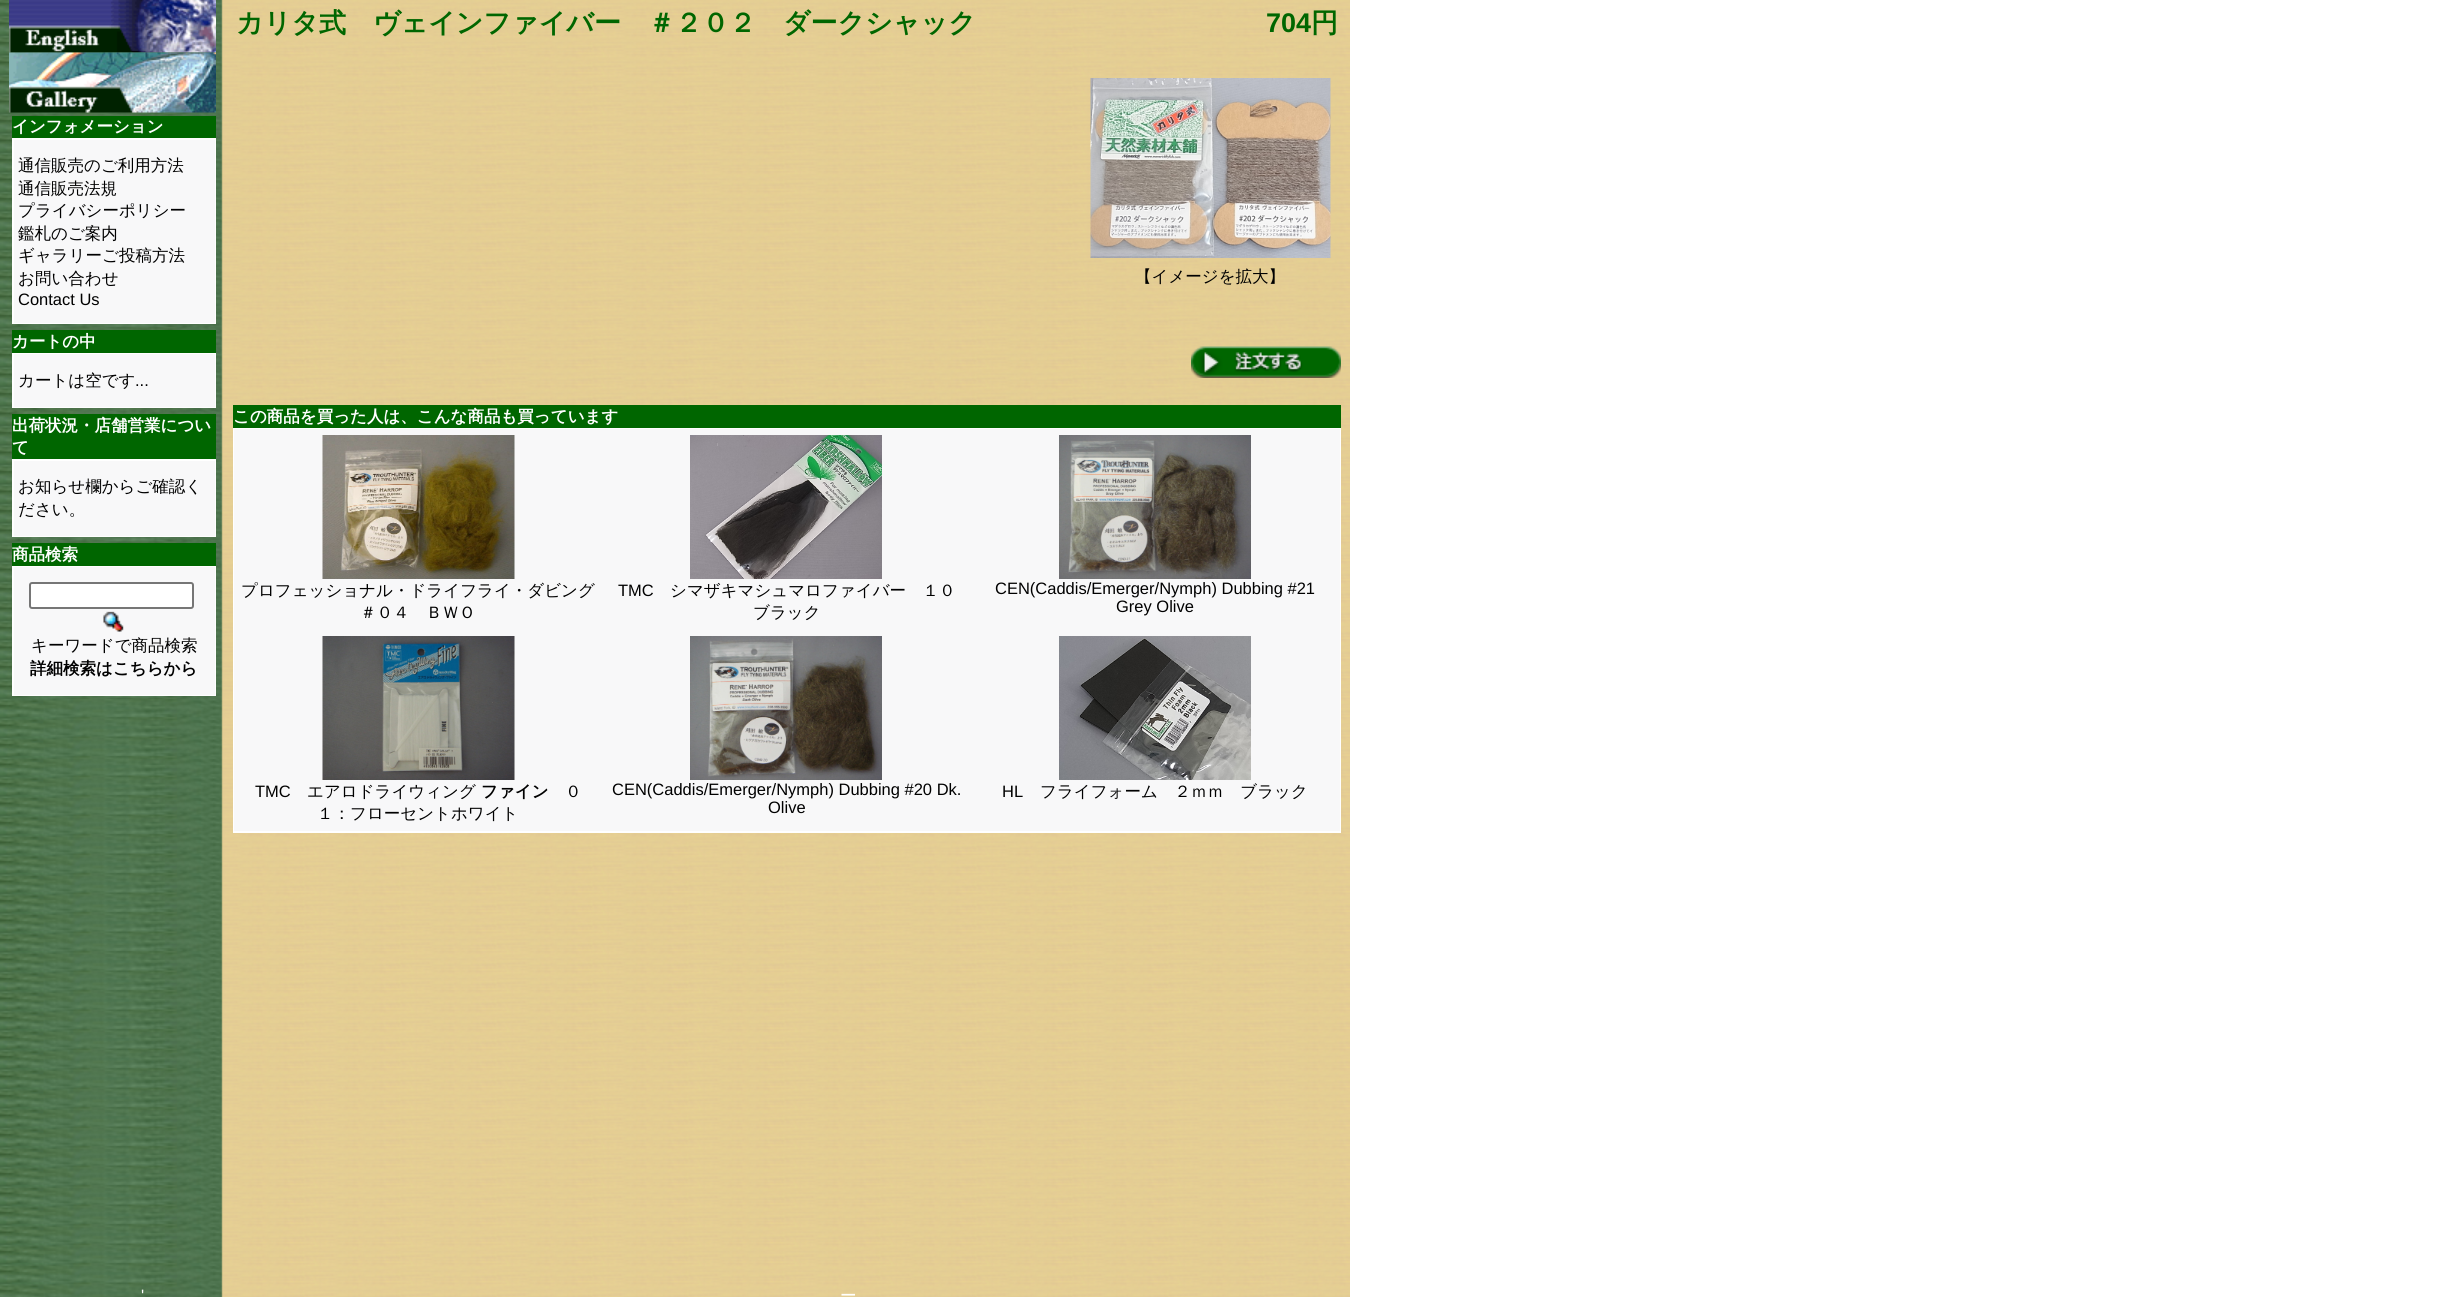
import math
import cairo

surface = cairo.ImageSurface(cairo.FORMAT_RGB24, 2439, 1297)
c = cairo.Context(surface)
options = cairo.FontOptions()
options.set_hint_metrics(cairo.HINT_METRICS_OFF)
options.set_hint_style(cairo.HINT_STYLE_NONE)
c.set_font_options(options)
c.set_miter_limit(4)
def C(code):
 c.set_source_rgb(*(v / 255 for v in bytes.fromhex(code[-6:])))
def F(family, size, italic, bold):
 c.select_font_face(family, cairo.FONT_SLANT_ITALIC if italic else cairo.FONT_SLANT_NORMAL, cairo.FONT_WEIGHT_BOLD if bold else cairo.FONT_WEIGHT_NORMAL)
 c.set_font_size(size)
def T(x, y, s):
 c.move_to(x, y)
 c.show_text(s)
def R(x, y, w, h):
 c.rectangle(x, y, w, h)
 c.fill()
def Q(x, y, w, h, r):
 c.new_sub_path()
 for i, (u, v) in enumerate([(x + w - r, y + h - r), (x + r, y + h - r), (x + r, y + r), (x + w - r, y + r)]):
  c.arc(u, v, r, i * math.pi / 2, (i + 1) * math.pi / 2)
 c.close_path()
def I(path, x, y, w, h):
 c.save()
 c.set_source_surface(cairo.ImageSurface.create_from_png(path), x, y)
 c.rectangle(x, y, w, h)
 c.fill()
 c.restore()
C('ffffff')
c.paint()
I('1.png',0,0,1350,1297)
I('2.png',9,0,207,53)
I('3.png',9,52,207,61)
C('006600')
R(12,116,204,22)
F('WenQuanYi Zen Hei',16.5,0,1)
C('ffffff')
T(12,132,'インフォメーション')
R(12,138,204,186)
C('f8f8f9')
R(14,140,201,183)
F('WenQuanYi Zen Hei Medium',16.5,0,0)
C('000000')
T(18,171,'通信販売のご利用方法')
T(18,194,'通信販売法規')
T(18,216,'プライバシーポリシー')
T(18,239,'鑑札のご案内')
T(18,261,'ギャラリーご投稿方法')
T(18,284,'お問い合わせ')
F('Liberation Sans',16.5,0,0)
T(18,305,'Contact Us')
C('006600')
R(12,330,204,23)
F('WenQuanYi Zen Hei',16.5,0,1)
C('ffffff')
T(12,347,'カートの中')
R(12,353,204,55)
C('f8f8f9')
R(14,354,201,53)
F('WenQuanYi Zen Hei Medium',16.5,0,0)
C('000000')
T(18,386,'カートは空です')
F('Liberation Sans',16.5,0,0)
T(135,386,'...')
C('006600')
R(12,414,204,45)
F('WenQuanYi Zen Hei',16.5,0,1)
C('ffffff')
T(12,431,'出荷状況・店舗営業につい')
T(12,453,'て')
R(12,459,204,78)
C('f8f8f9')
R(14,461,201,75)
F('WenQuanYi Zen Hei Medium',16.5,0,0)
C('000000')
T(18,492,'お知らせ欄からご確認く')
T(18,515,'ださい。')
C('006600')
R(12,543,204,23)
F('WenQuanYi Zen Hei',16.5,0,1)
C('ffffff')
T(12,560,'商品検索')
R(12,566,204,130)
C('f8f8f9')
R(14,567,201,128)
C('ffffff')
Q(30,583,163,25,2)
c.fill_preserve()
C('767676')
c.stroke()
I('4.png',103,611,21,21)
F('WenQuanYi Zen Hei Medium',16.5,0,0)
C('000000')
T(31,651,'キーワードで商品検索')
F('WenQuanYi Zen Hei',16.5,0,1)
T(30,674,'詳細検索はこちらから')
F('WenQuanYi Zen Hei',27,0,1)
C('006600')
T(236,32,'カリタ式　ヴェインファイバー　＃２０２　ダークシャック')
F('Liberation Sans',27,0,1)
T(1266,32,'704')
F('WenQuanYi Zen Hei',27,0,1)
T(1311,32,'円')
I('5.png',1090,78,241,180)
F('WenQuanYi Zen Hei Medium',16.5,0,0)
C('000000')
T(1135,282,'【イメージを拡大】')
I('6.png',1191,346,150,32)
C('006600')
R(233,405,1108,23)
F('WenQuanYi Zen Hei',16.5,0,1)
C('ffffff')
T(233,422,'この商品を買った人は、こんな商品も買っています')
R(233,428,1108,405)
C('f8f8f9')
R(234,429,1106,402)
I('7.png',322,435,193,144)
F('WenQuanYi Zen Hei Medium',16.5,0,0)
C('000000')
T(241,596,'プロフェッショナル・ドライフライ・ダビング')
T(360,618,'＃０４　ＢＷＯ')
I('8.png',690,435,192,144)
F('Liberation Sans',16.5,0,0)
T(618,596,'TMC')
F('WenQuanYi Zen Hei Medium',16.5,0,0)
T(670,596,'シマザキマシュマロファイバー　１０')
T(753,618,'ブラック')
I('9.png',1059,435,192,144)
F('Liberation Sans',16.5,0,0)
T(995,594,'CEN(Caddis/Emerger/Nymph) Dubbing #21')
T(1116,612,'Grey Olive')
I('10.png',322,636,193,144)
T(255,797,'TMC')
F('WenQuanYi Zen Hei Medium',16.5,0,0)
T(307,797,'エアロドライウィング')
F('WenQuanYi Zen Hei',16.5,0,1)
T(481,797,'ファイン')
F('WenQuanYi Zen Hei Medium',16.5,0,0)
T(565,797,'０')
T(317,819,'１：フローセントホワイト')
I('11.png',690,636,192,144)
F('Liberation Sans',16.5,0,0)
T(612,795,'CEN(Caddis/Emerger/Nymph) Dubbing #20 Dk.')
T(768,813,'Olive')
I('12.png',1059,636,192,144)
T(1002,797,'HL')
F('WenQuanYi Zen Hei Medium',16.5,0,0)
T(1040,797,'フライフォーム　２ｍｍ　ブラック')
F('Liberation Sans',16.5,0,0)
C('ffffff')
T(141,1301,'\'')
F('WenQuanYi Zen Hei Medium',16.5,0,0)
T(840,1301,'ー')
surface.write_to_png('o.png')
